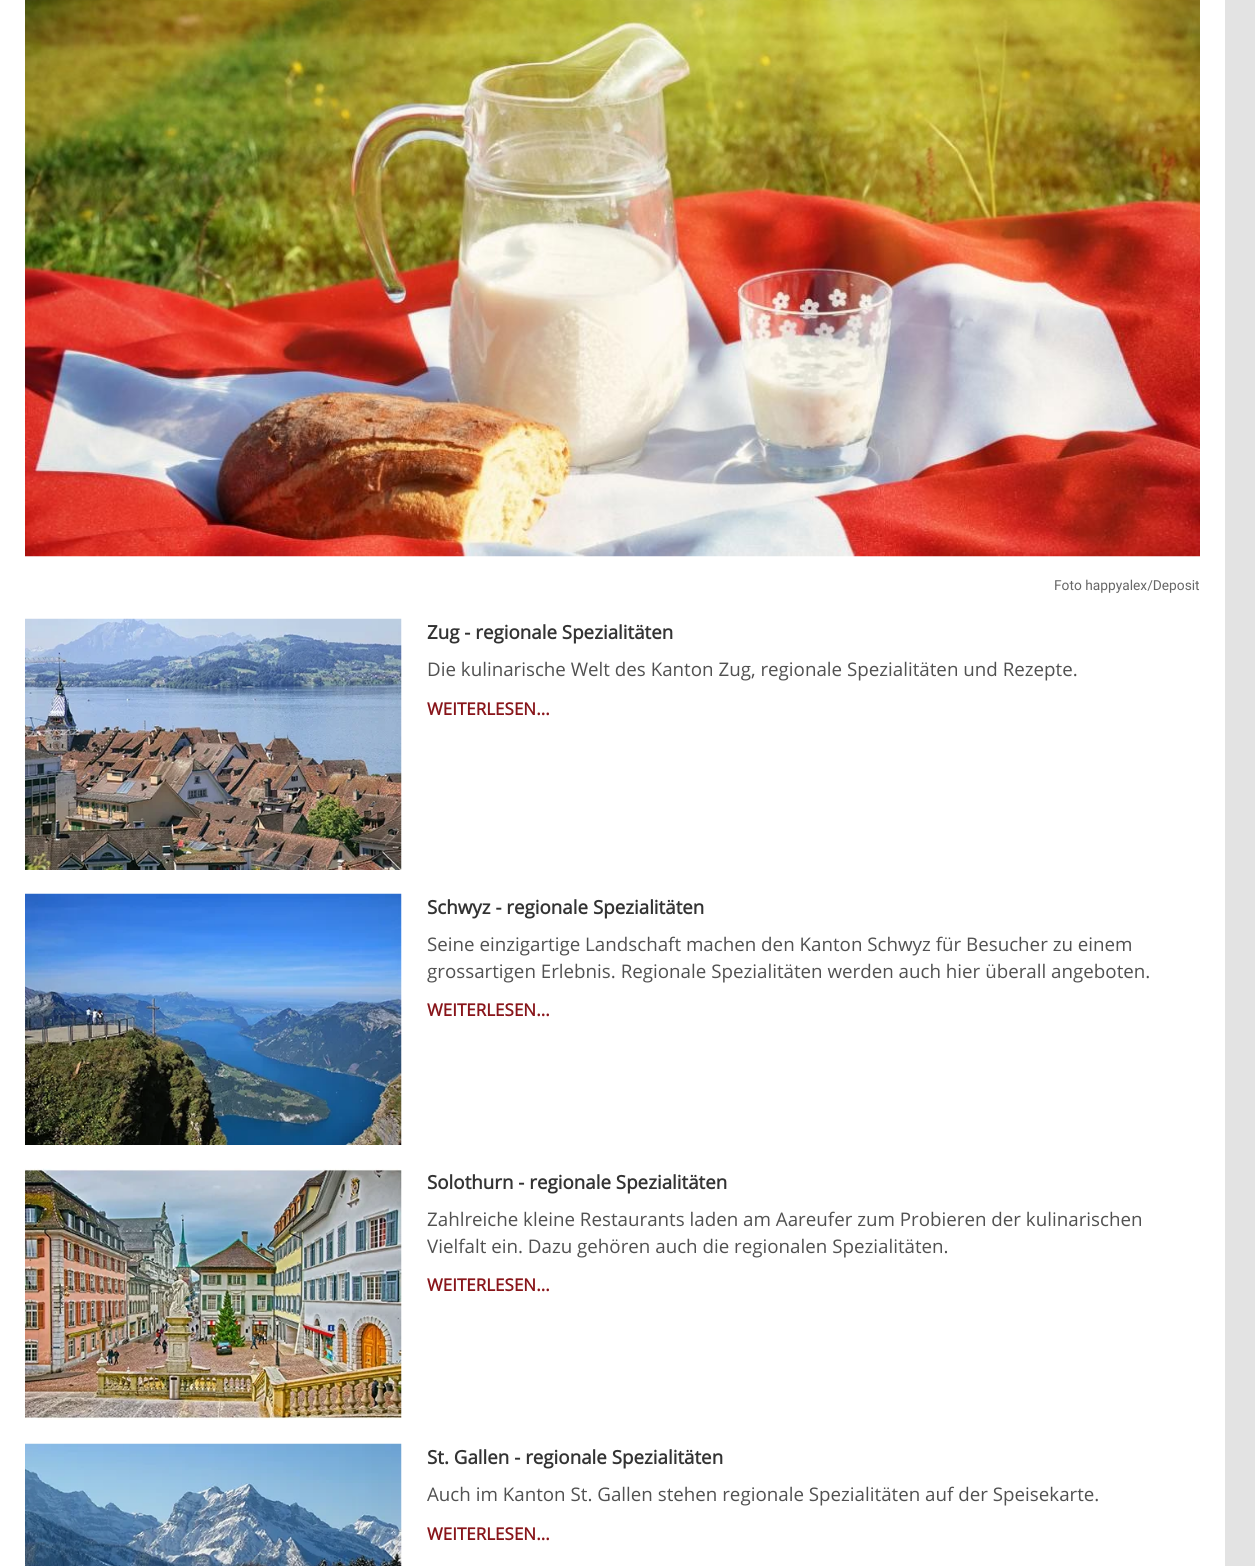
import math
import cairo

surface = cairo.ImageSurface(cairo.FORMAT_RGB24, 1255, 1566)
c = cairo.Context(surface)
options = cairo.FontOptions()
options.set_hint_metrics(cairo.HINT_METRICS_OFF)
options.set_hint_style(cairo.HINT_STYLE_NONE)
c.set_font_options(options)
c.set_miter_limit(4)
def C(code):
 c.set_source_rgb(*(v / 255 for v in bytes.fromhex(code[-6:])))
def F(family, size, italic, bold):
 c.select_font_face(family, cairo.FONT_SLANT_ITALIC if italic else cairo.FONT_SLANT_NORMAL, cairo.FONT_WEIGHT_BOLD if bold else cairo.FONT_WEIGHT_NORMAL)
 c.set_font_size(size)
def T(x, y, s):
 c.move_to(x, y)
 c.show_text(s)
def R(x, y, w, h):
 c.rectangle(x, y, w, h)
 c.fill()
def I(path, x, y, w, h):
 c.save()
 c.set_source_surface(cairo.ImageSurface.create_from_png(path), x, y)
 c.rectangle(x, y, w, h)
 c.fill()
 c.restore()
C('e3e3e3')
c.paint()
C('ffffff')
R(0,0,1225,1566)
I('1.png',25,0,1175,557)
F('Roboto',13.75,0,0)
C('666666')
T(1054,590,'Foto happyalex/Deposit')
I('2.png',25,618,377,252)
F('Open Sans',18.75,0,1)
C('333333')
T(427,639,'Zug - regionale Spezialitäten')
F('Open Sans',18.75,0,0)
C('515151')
T(427,676,'Die kulinarische Welt des Kanton Zug, regionale Spezialitäten und Rezepte.')
F('Open Sans',17,0,1)
C('88151a')
T(427,715,'WEITERLESEN...')
I('3.png',25,893,377,252)
F('Open Sans',18.75,0,1)
C('333333')
T(427,914,'Schwyz - regionale Spezialitäten')
F('Open Sans',18.75,0,0)
C('515151')
T(427,951,'Seine einzigartige Landschaft machen den Kanton Schwyz für Besucher zu einem')
T(427,978,'grossartigen Erlebnis. Regionale Spezialitäten werden auch hier überall angeboten.')
F('Open Sans',17,0,1)
C('88151a')
T(427,1016,'WEITERLESEN...')
I('4.png',25,1168,377,252)
F('Open Sans',18.75,0,1)
C('333333')
T(427,1189,'Solothurn - regionale Spezialitäten')
F('Open Sans',18.75,0,0)
C('515151')
T(427,1226,'Zahlreiche kleine Restaurants laden am Aareufer zum Probieren der kulinarischen')
T(427,1253,'Vielfalt ein. Dazu gehören auch die regionalen Spezialitäten.')
F('Open Sans',17,0,1)
C('88151a')
T(427,1291,'WEITERLESEN...')
I('5.png',25,1443,377,123)
F('Open Sans',18.75,0,1)
C('333333')
T(427,1464,'St. Gallen - regionale Spezialitäten')
F('Open Sans',18.75,0,0)
C('515151')
T(427,1501,'Auch im Kanton St. Gallen stehen regionale Spezialitäten auf der Speisekarte.')
F('Open Sans',17,0,1)
C('88151a')
T(427,1540,'WEITERLESEN...')
surface.write_to_png('o.png')
